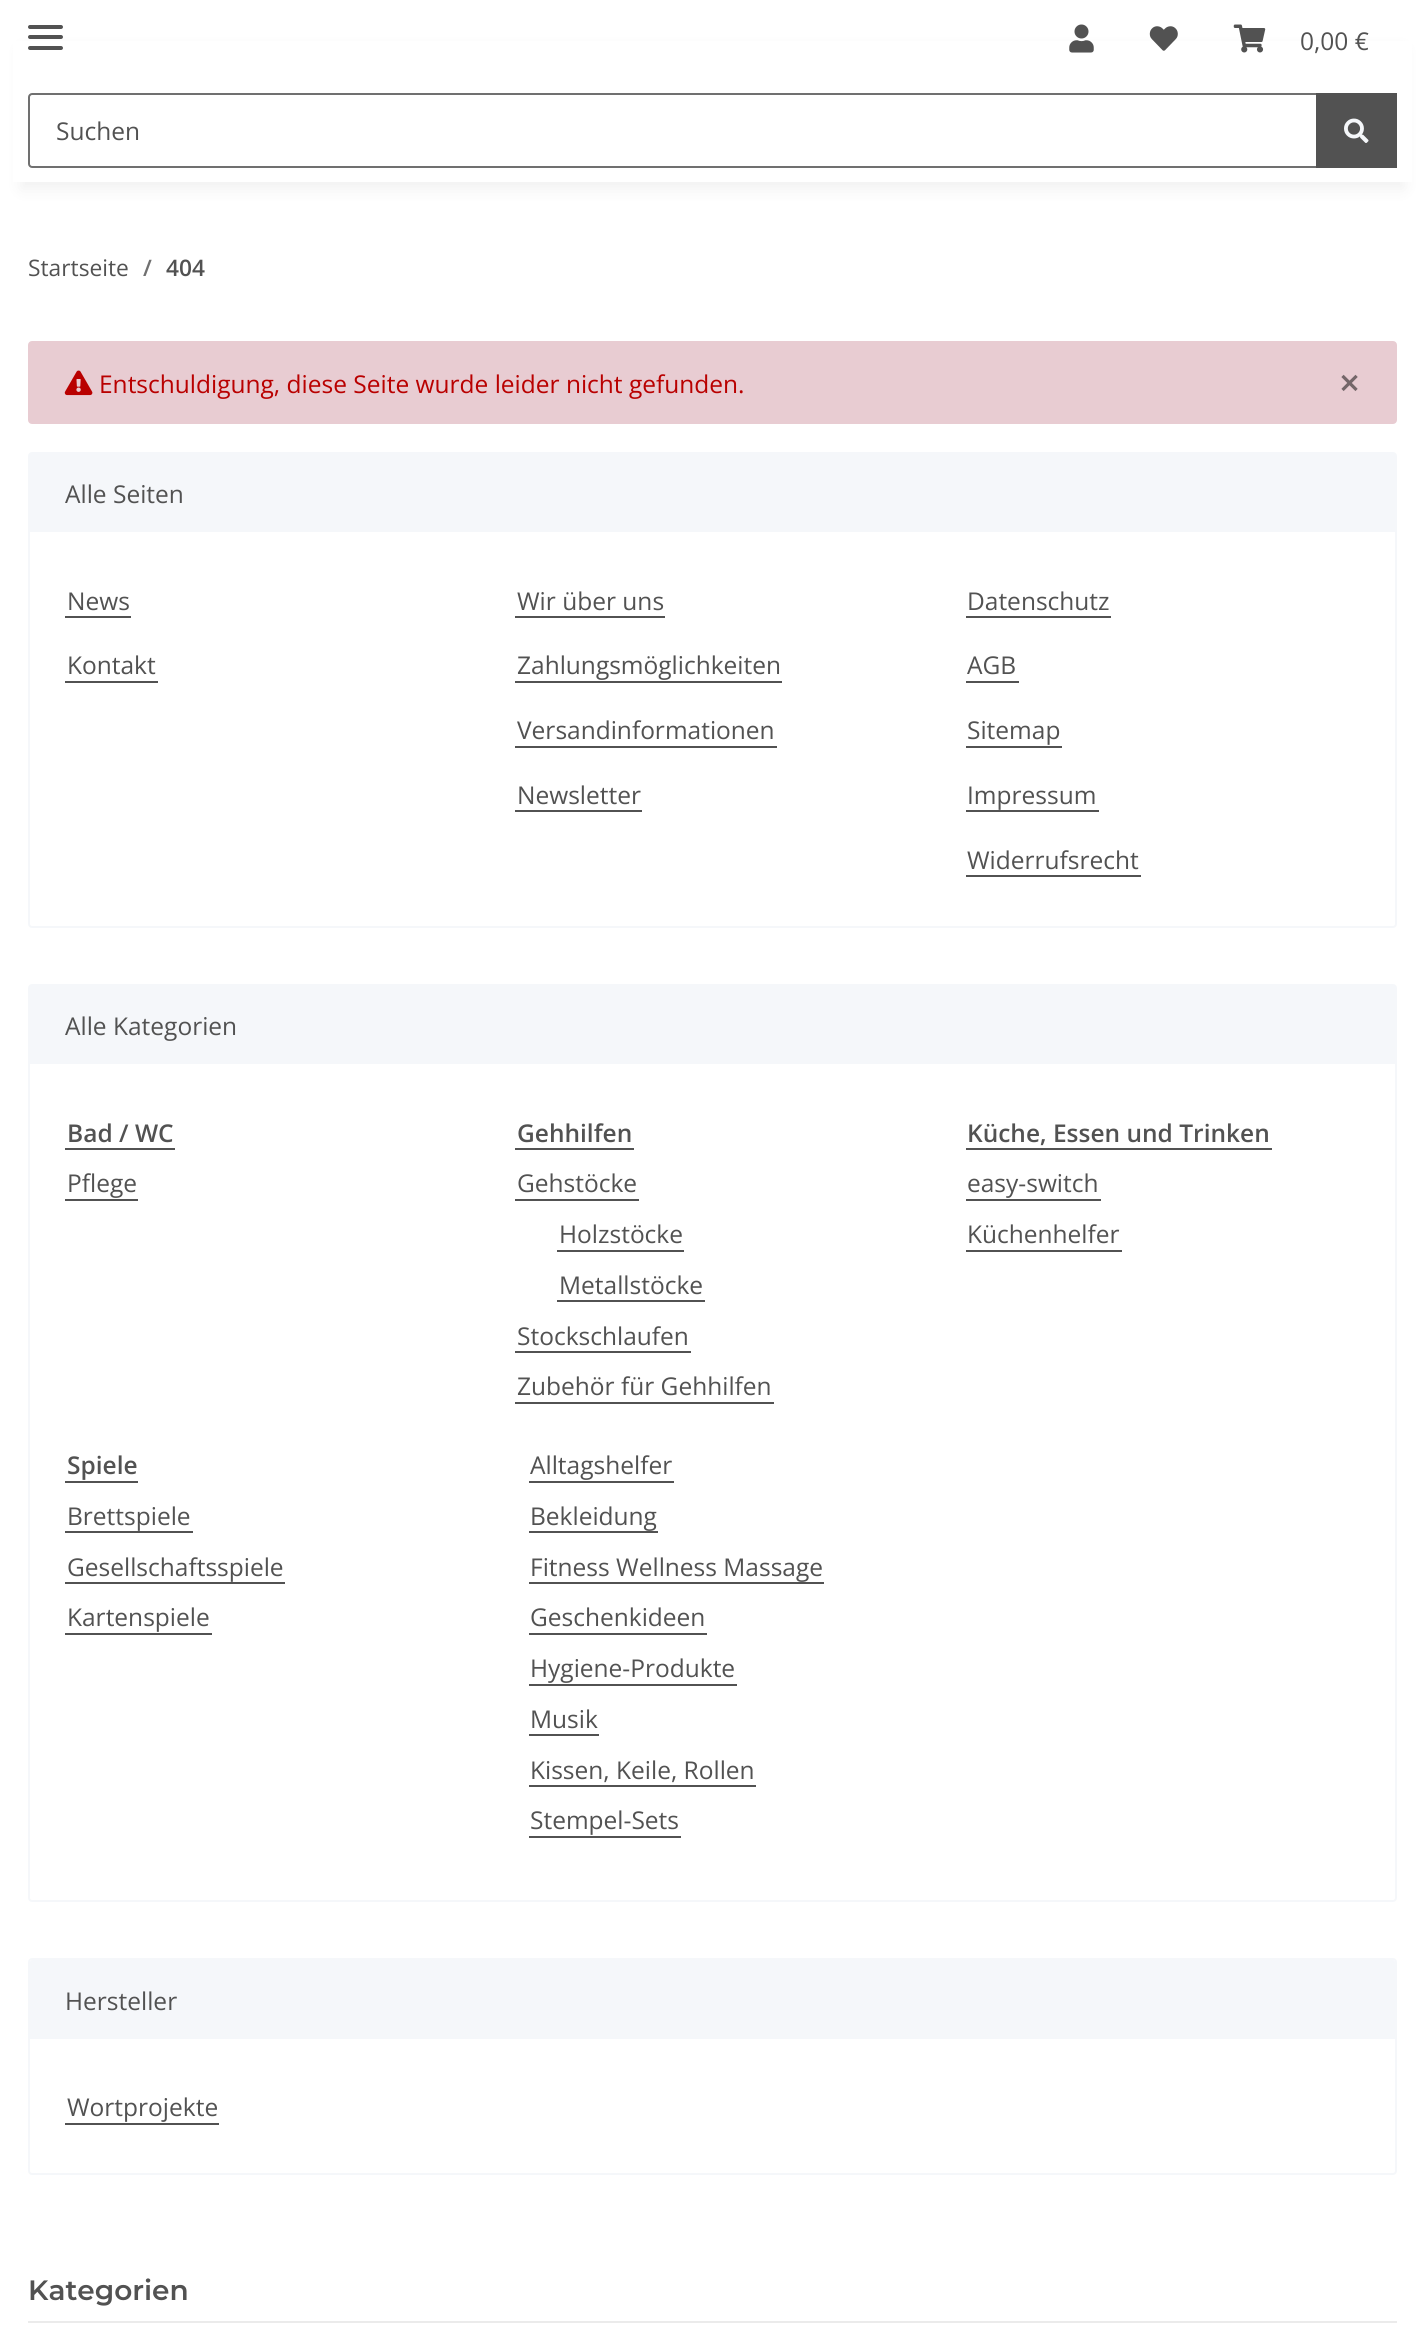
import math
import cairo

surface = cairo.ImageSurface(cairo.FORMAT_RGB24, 1423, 2349)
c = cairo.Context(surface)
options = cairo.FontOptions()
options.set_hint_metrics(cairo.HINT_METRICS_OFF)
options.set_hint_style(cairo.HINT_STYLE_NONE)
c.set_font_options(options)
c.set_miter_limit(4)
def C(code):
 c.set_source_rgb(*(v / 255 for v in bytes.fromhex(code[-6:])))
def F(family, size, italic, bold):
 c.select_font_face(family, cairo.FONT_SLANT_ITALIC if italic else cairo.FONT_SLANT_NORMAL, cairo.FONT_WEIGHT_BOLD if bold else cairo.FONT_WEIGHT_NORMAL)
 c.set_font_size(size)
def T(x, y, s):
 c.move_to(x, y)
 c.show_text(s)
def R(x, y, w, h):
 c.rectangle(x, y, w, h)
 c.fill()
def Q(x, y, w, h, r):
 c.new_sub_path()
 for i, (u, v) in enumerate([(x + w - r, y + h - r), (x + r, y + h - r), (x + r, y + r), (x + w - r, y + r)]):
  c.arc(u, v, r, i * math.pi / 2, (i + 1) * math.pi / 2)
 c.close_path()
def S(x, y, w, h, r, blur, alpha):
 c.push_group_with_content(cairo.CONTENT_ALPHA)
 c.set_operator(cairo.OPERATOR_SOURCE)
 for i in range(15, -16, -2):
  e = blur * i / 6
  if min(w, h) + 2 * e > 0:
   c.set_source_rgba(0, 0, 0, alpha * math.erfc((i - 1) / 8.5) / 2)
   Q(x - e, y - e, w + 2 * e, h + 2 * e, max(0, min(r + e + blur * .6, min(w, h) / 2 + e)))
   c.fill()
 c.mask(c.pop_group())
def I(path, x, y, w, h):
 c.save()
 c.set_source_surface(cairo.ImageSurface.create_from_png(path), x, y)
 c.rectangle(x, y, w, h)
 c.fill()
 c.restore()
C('ffffff')
c.paint()
C('000000')
S(21,49,1383,140,0,8,.06)
C('ffffff')
R(13,41,1399,141)
C('525252')
Q(28,35,35,4,2)
c.fill()
Q(28,25,35,4,2)
c.fill()
Q(28,46,35,4,2)
c.fill()
I('1.png',1069,24,25,29)
I('2.png',1149,26,29,25)
I('3.png',1233,24,33,29)
F('Open Sans',24.5,0,0)
T(1300,50,'0,00 €')
c.new_path()
c.move_to(32,94)
c.line_to(1317,94)
c.line_to(1317,167)
c.line_to(32,167)
c.curve_to(30.5,167,29,165.5,29,164)
c.line_to(29,97)
c.curve_to(29,95.5,30.5,94,32,94)
c.close_path()
C('707070')
c.stroke()
C('525252')
T(56,140,'Suchen')
R(1316,93,81,75)
I('4.png',1344,118,25,25)
F('Open Sans',22.75,0,0)
T(28,276,'Startseite')
F('Open Sans SemiBold',22.75,0,0)
C('707070')
T(143,276,'/')
C('525252')
T(166,276,'404')
C('e8ccd2')
Q(29,342,1367,81,3)
c.fill_preserve()
c.stroke()
I('5.png',64,370,29,26)
F('Open Sans',24.5,0,0)
C('b90000')
T(99,393,'Entschuldigung, diese Seite wurde leider nicht gefunden.')
F('Open Sans SemiBold',37,0,0)
C('746669')
T(1339,396,'×')
Q(29,453,1367,474,3)
C('f5f7fa')
c.stroke()
c.new_path()
c.move_to(32,453)
c.line_to(1393,453)
c.curve_to(1394,453,1395,454,1395,455)
c.line_to(1395,532)
c.line_to(30,532)
c.line_to(30,455)
c.curve_to(30,454,31,453,32,453)
c.close_path()
c.fill()
F('Open Sans',24.5,0,0)
C('525252')
T(65,503,'Alle Seiten')
T(67,610,'News')
R(65,616,66,2)
T(67,674,'Kontakt')
R(65,681,93,2)
T(517,610,'Wir über uns')
R(515,616,150,2)
T(517,674,'Zahlungsmöglichkeiten')
R(515,681,267,2)
T(517,739,'Versandinformationen')
R(515,746,262,2)
T(517,804,'Newsletter')
R(515,810,127,2)
T(967,610,'Datenschutz')
R(966,616,145,2)
T(967,674,'AGB')
R(966,681,53,2)
T(967,739,'Sitemap')
R(966,746,96,2)
T(967,804,'Impressum')
R(966,810,133,2)
T(967,869,'Widerrufsrecht')
R(966,875,175,2)
Q(29,985,1367,916,3)
C('f5f7fa')
c.stroke()
c.new_path()
c.move_to(32,985)
c.line_to(1393,985)
c.curve_to(1394,985,1395,986,1395,987)
c.line_to(1395,1064)
c.line_to(30,1064)
c.line_to(30,987)
c.curve_to(30,986,31,985,32,985)
c.close_path()
c.fill()
C('525252')
T(65,1035,'Alle Kategorien')
F('Open Sans SemiBold',24.5,0,0)
T(67,1142,'Bad / WC')
R(65,1148,110,2)
F('Open Sans',24.5,0,0)
T(67,1192,'Pflege')
R(65,1199,73,2)
F('Open Sans SemiBold',24.5,0,0)
T(517,1142,'Gehhilfen')
R(515,1148,119,2)
F('Open Sans',24.5,0,0)
T(517,1192,'Gehstöcke')
R(515,1199,124,2)
T(559,1243,'Holzstöcke')
R(557,1250,127,2)
T(559,1294,'Metallstöcke')
R(557,1300,148,2)
T(517,1345,'Stockschlaufen')
R(515,1351,176,2)
T(517,1395,'Zubehör für Gehhilfen')
R(515,1402,259,2)
F('Open Sans SemiBold',24.5,0,0)
T(967,1142,'Küche, Essen und Trinken')
R(966,1148,306,2)
F('Open Sans',24.5,0,0)
T(967,1192,'easy-switch')
R(966,1199,135,2)
T(967,1243,'Küchenhelfer')
R(966,1250,156,2)
F('Open Sans SemiBold',24.5,0,0)
T(67,1474,'Spiele')
R(65,1481,73,2)
F('Open Sans',24.5,0,0)
T(67,1525,'Brettspiele')
R(65,1531,128,2)
T(67,1576,'Gesellschaftsspiele')
R(65,1582,220,2)
T(67,1626,'Kartenspiele')
R(65,1633,147,2)
T(530,1474,'Alltagshelfer')
R(529,1481,145,2)
T(530,1525,'Bekleidung')
R(529,1531,129,2)
T(530,1576,'Fitness Wellness Massage')
R(529,1582,295,2)
T(530,1626,'Geschenkideen')
R(529,1633,178,2)
T(530,1677,'Hygiene-Produkte')
R(529,1684,208,2)
T(530,1728,'Musik')
R(529,1734,70,2)
T(530,1779,'Kissen, Keile, Rollen')
R(529,1785,227,2)
T(530,1829,'Stempel-Sets')
R(529,1836,152,2)
Q(29,1959,1367,215,3)
C('f5f7fa')
c.stroke()
c.new_path()
c.move_to(32,1960)
c.line_to(1393,1960)
c.curve_to(1394,1960,1395,1961,1395,1962)
c.line_to(1395,2039)
c.line_to(30,2039)
c.line_to(30,1962)
c.curve_to(30,1961,31,1960,32,1960)
c.close_path()
c.fill()
C('525252')
T(65,2010,'Hersteller')
T(67,2116,'Wortprojekte')
R(65,2123,154,2)
C('ebebeb')
R(28,2321,1369,2)
F('Montserrat SemiBold',28,0,0)
C('525252')
T(28,2300,'Kategorien')
surface.write_to_png('o.png')
